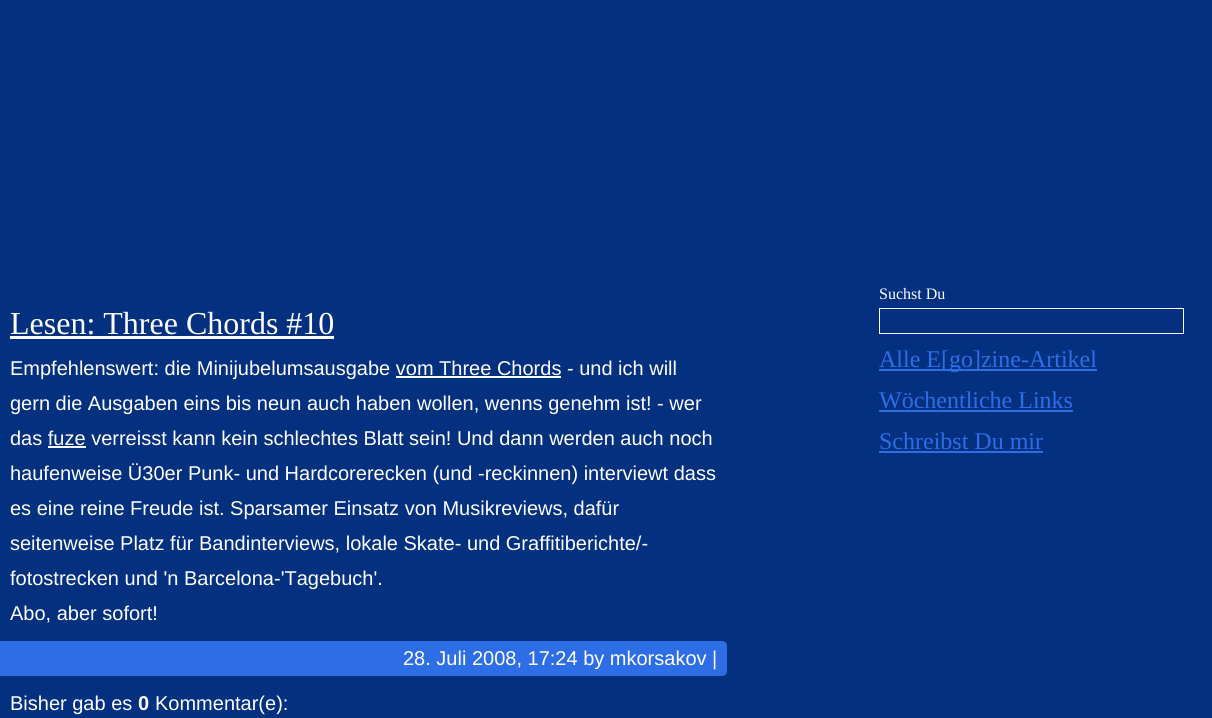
import math
import cairo

surface = cairo.ImageSurface(cairo.FORMAT_RGB24, 1212, 718)
c = cairo.Context(surface)
options = cairo.FontOptions()
options.set_hint_metrics(cairo.HINT_METRICS_OFF)
options.set_hint_style(cairo.HINT_STYLE_NONE)
c.set_font_options(options)
c.set_miter_limit(4)
def C(code):
 c.set_source_rgb(*(v / 255 for v in bytes.fromhex(code[-6:])))
def F(family, size, italic, bold):
 c.select_font_face(family, cairo.FONT_SLANT_ITALIC if italic else cairo.FONT_SLANT_NORMAL, cairo.FONT_WEIGHT_BOLD if bold else cairo.FONT_WEIGHT_NORMAL)
 c.set_font_size(size)
def T(x, y, s):
 c.move_to(x, y)
 c.show_text(s)
def R(x, y, w, h):
 c.rectangle(x, y, w, h)
 c.fill()
C('043080')
c.paint()
F('Liberation Serif',32,0,0)
C('ffffff')
T(10,334,'Lesen: Three Chords #10')
R(10,336,324,3)
F('Liberation Sans',20,0,0)
T(10,375,'Empfehlenswert: die Minijubelumsausgabe vom Three Chords - und ich will')
R(396,376,165,2)
T(10,410,'gern die Ausgaben eins bis neun auch haben wollen, wenns genehm ist! - wer')
T(10,445,'das fuze verreisst kann kein schlechtes Blatt sein! Und dann werden auch noch')
R(48,446,38,2)
T(10,480,'haufenweise Ü30er Punk- und Hardcorerecken (und -reckinnen) interviewt dass')
T(10,515,'es eine reine Freude ist. Sparsamer Einsatz von Musikreviews, dafür')
T(10,550,'seitenweise Platz für Bandinterviews, lokale Skate- und Graffitiberichte/-')
T(10,585,'fotostrecken und \'n Barcelona-\'Tagebuch\'.')
T(10,620,'Abo, aber sofort!')
C('2d6ee6')
c.new_path()
c.move_to(0,641)
c.line_to(722,641)
c.curve_to(725,641,727,643,727,646)
c.line_to(727,671)
c.curve_to(727,674,725,676,722,676)
c.line_to(0,676)
c.close_path()
c.fill()
C('ffffff')
T(403,665,'28. Juli 2008, 17:24 by mkorsakov |')
T(10,710,'Bisher gab es')
F('Liberation Sans',20,0,1)
T(138,710,'0')
F('Liberation Sans',20,0,0)
T(155,710,'Kommentar(e):')
F('Liberation Serif',16,0,0)
T(879,299,'Suchst Du')
c.rectangle(879.5,308.5,304,25)
c.set_line_width(1)
c.stroke()
C('2d6ee6')
R(879,369,218,2)
F('Liberation Serif',24,0,0)
T(879,367,'Alle E[go]zine-Artikel')
T(879,408,'Wöchentliche Links')
R(879,410,194,2)
T(879,449,'Schreibst Du mir')
R(879,451,164,2)
surface.write_to_png('o.png')
